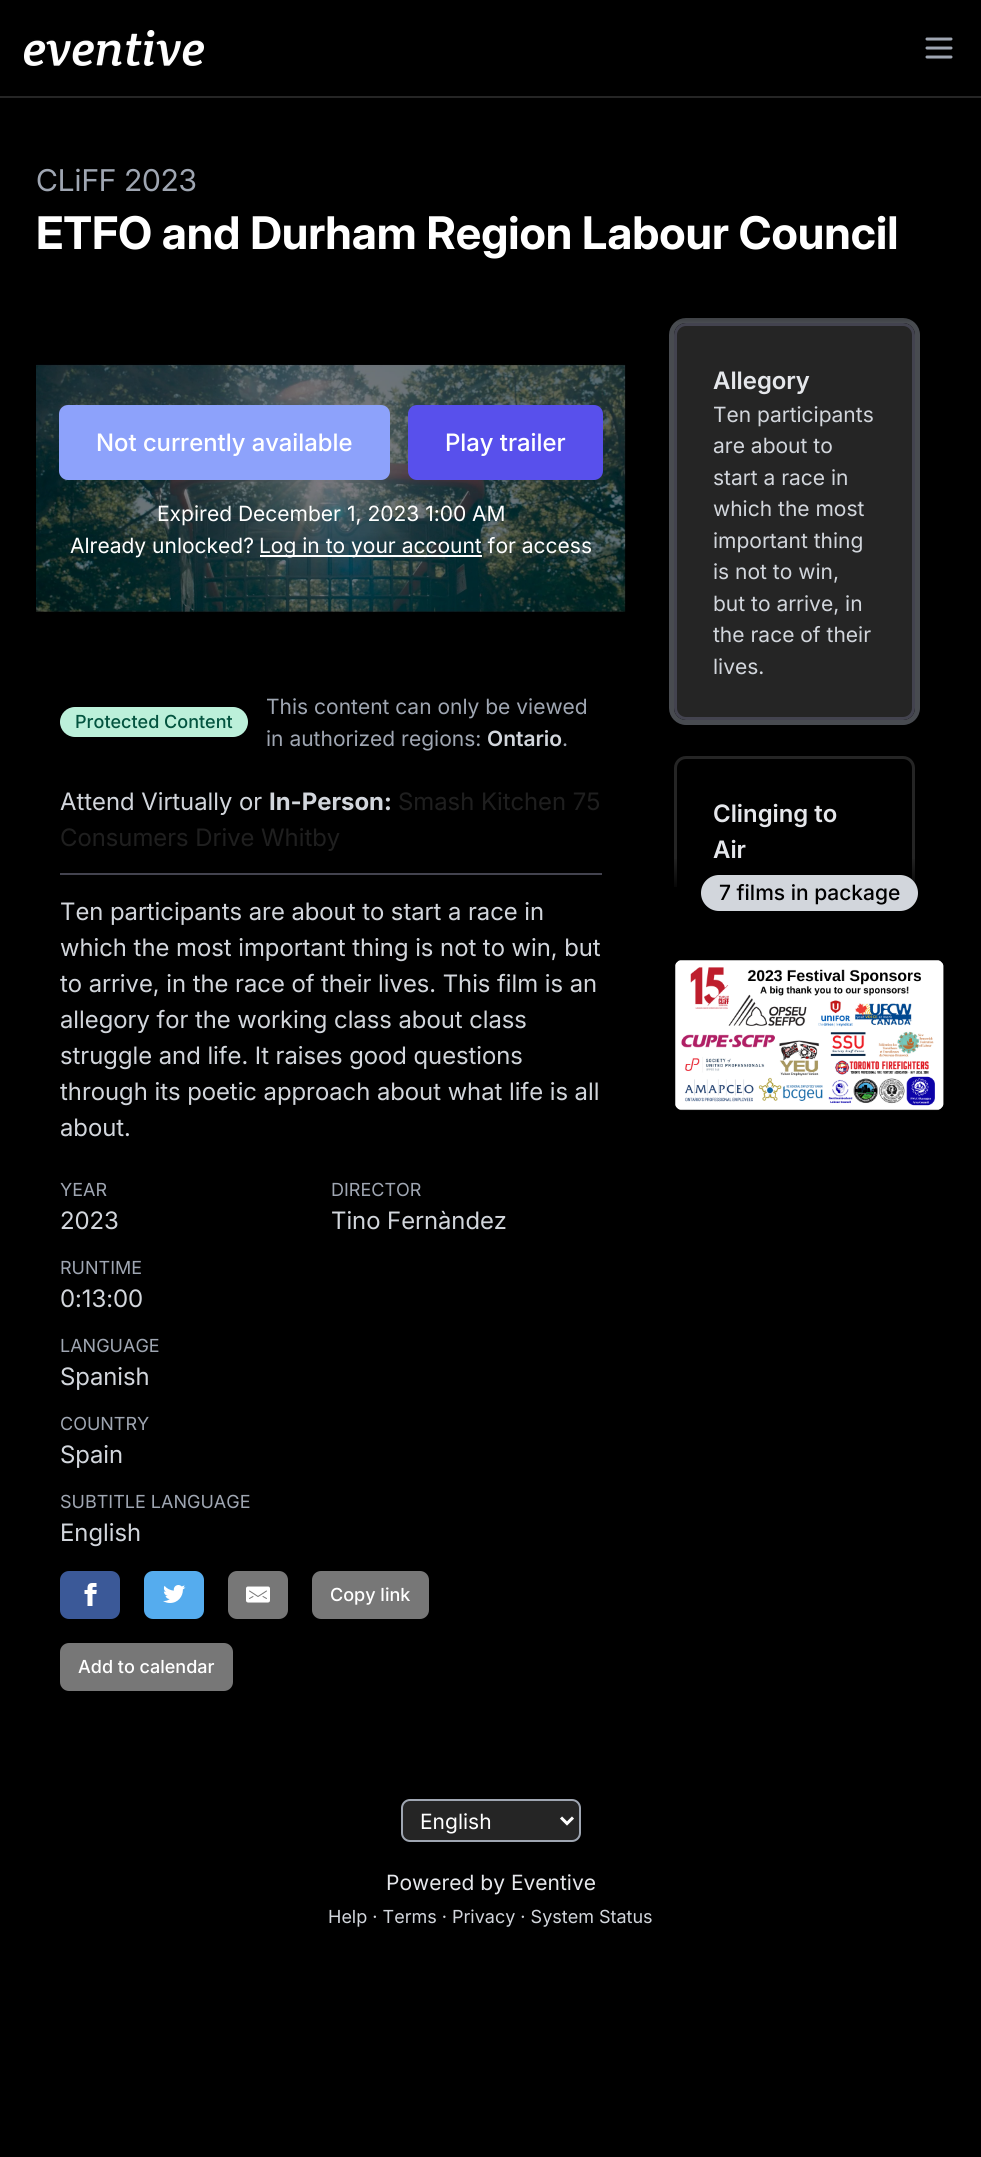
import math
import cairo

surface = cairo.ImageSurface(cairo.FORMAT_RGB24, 981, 2157)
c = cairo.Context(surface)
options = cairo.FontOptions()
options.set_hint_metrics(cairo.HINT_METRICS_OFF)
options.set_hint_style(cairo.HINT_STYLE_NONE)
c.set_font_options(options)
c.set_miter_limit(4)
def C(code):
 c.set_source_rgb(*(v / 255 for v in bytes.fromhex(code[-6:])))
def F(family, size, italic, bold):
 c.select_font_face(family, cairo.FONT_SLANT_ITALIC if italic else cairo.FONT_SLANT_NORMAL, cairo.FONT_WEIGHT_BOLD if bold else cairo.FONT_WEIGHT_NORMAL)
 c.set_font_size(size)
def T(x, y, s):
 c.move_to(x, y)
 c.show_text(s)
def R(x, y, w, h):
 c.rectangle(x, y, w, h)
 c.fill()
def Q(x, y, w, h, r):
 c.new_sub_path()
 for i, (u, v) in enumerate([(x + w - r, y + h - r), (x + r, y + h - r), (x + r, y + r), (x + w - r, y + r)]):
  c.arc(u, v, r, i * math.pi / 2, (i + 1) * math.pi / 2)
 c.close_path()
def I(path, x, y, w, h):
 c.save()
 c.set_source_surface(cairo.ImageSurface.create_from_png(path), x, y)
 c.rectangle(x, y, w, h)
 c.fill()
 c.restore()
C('000000')
c.paint()
C('252525')
R(0,96,981,2)
I('1.png',24,30,180,36)
c.new_path()
c.move_to(927,39)
c.line_to(951,39)
c.move_to(927,48)
c.line_to(951,48)
c.move_to(927,57)
c.line_to(951,57)
C('9fa6b2')
c.set_line_width(3)
c.set_line_cap(cairo.LINE_CAP_ROUND)
c.set_line_join(cairo.LINE_JOIN_ROUND)
c.stroke()
F('Inter',30,0,0)
T(36,191,'CLiFF 2023')
F('Inter',45,0,1)
C('ffffff')
T(36,249,'ETFO and Durham Region Labour Council')
I('2.png',36,363,590,250)
c.set_source_rgba(0,0,0,0.5)
Q(36,323,590,331,12)
c.fill()
C('8da2fb')
Q(59,405,331,75,9)
c.fill()
F('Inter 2 Medium',24,0,0)
C('ffffff')
T(96,451,'Not currently available')
C('5850ec')
Q(408,405,195,75,9)
c.fill()
C('ffffff')
T(445,451,'Play trailer')
F('Inter 2',21,0,0)
T(157,521,'Expired December 1, 2023 1:00 AM')
T(70,553,'Already unlocked?')
R(260,555,222,2)
T(259,553,'Log in to your account for access')
C('bcf0da')
Q(60,707,188,30,15)
c.fill()
F('Inter Medium',18,0,0)
C('03543f')
T(75,728,'Protected Content')
F('Inter 2',21,0,0)
C('9fa6b2')
T(266,714,'This content can only be viewed')
T(266,746,'in authorized regions:')
F('Inter SemiBold',21,0,0)
C('d2d6dc')
T(487,746,'Ontario')
F('Inter 2',21,0,0)
C('9fa6b2')
T(562,746,'.')
C('43434f')
R(60,873,542,2)
F('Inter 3',24,0,0)
C('d2d6dc')
T(60,810,'Attend Virtually or')
F('Inter 2',24,0,1)
T(269,810,'In-Person:')
F('Inter 3',24,0,0)
C('1f1f1f')
T(398,810,'Smash Kitchen 75')
T(60,846,'Consumers Drive Whitby')
C('d2d6dc')
T(60,920,'Ten participants are about to start a race in')
T(60,956,'which the most important thing is not to win, but')
T(60,992,'to arrive, in the race of their lives. This film is an')
T(60,1028,'allegory for the working class about class')
T(60,1064,'struggle and life. It raises good questions')
T(60,1100,'through its poetic approach about what life is all')
T(60,1136,'about.')
F('Inter 2',18,0,0)
C('9fa6b2')
T(60,1196,'YEAR')
F('Inter 3',24,0,0)
C('d2d6dc')
T(60,1229,'2023')
F('Inter 2',18,0,0)
C('9fa6b2')
T(60,1274,'RUNTIME')
F('Inter 3',24,0,0)
C('d2d6dc')
T(60,1307,'0:13:00')
F('Inter 2',18,0,0)
C('9fa6b2')
T(60,1352,'LANGUAGE')
F('Inter 3',24,0,0)
C('d2d6dc')
T(60,1385,'Spanish')
F('Inter 2',18,0,0)
C('9fa6b2')
T(60,1430,'COUNTRY')
F('Inter 3',24,0,0)
C('d2d6dc')
T(60,1463,'Spain')
F('Inter 2',18,0,0)
C('9fa6b2')
T(60,1508,'SUBTITLE LANGUAGE')
F('Inter 3',24,0,0)
C('d2d6dc')
T(60,1541,'English')
F('Inter 2',18,0,0)
C('9fa6b2')
T(331,1196,'DIRECTOR')
F('Inter 3',24,0,0)
C('d2d6dc')
T(331,1229,'Tino Fernàndez')
C('3b5998')
Q(60,1571,60,48,9)
c.fill()
I('3.png',84,1583,13,23)
C('55acee')
Q(144,1571,60,48,9)
c.fill()
I('4.png',163,1585,23,18)
C('777777')
Q(228,1571,60,48,9)
c.fill()
I('5.png',246,1586,24,17)
Q(312,1571,117,48,9)
c.fill()
F('Inter Medium',18,0,0)
C('ffffff')
T(330,1601,'Copy link')
C('777777')
Q(60,1643,173,48,9)
c.fill()
C('ffffff')
T(78,1673,'Add to calendar')
Q(671.5,320.5,246,402,14.5)
C('484b50')
c.set_line_width(5)
c.set_line_cap(cairo.LINE_CAP_BUTT)
c.set_line_join(cairo.LINE_JOIN_MITER)
c.stroke()
gradient = cairo.LinearGradient(785,323,785,287)
gradient.add_color_stop_rgba(0,0,0,0,0)
gradient.add_color_stop_rgba(1,0,0,0,1)
c.set_source(gradient)
R(676,318,237,4)
C('252525')
Q(675.5,324.5,238,394,10.5)
c.fill_preserve()
C('43434f')
c.set_line_width(3)
c.stroke()
F('Inter 2 SemiBold',24,0,0)
C('e5e7eb')
T(713,389,'Allegory')
F('Inter 2',21,0,0)
C('d2d6dc')
T(713,422,'Ten participants')
T(713,453,'are about to')
T(713,485,'start a race in')
T(713,516,'which the most')
T(713,548,'important thing')
T(713,579,'is not to win,')
T(713,611,'but to arrive, in')
T(713,642,'the race of their')
T(713,674,'lives.')
I('6.png',675,960,269,151)
c.save()
c.rectangle(662,287,283,600)
c.clip()
Q(675.5,757.5,238,210,10.5)
C('252525')
c.stroke()
c.restore()
F('Inter 2 SemiBold',24,0,0)
C('e5e7eb')
T(713,822,'Clinging to')
T(713,858,'Air')
gradient = cairo.LinearGradient(787,857,787,893)
gradient.add_color_stop_rgba(0,0,0,0,0)
gradient.add_color_stop_rgba(1,0,0,0,1)
c.set_source(gradient)
R(674,859,241,28)
C('d2d6dc')
Q(701,875,217,36,18)
c.fill()
F('Inter Medium',21,0,0)
C('000000')
T(719,900,'7 films in package')
C('252525')
Q(402,1800,178,41,8)
c.fill_preserve()
C('9fa6b2')
c.set_line_width(2)
c.stroke()
c.new_path()
c.move_to(561,1817.5)
c.line_to(567,1823.5)
c.line_to(573,1817.5)
C('ffffff')
c.set_line_width(3)
c.stroke()
F('Inter 2',21,0,0)
T(420,1829,'English')
C('e5e7eb')
T(386,1890,'Powered by Eventive')
F('Inter 2',18,0,0)
C('d2d6dc')
T(328,1923,'Help · Terms · Privacy · System Status')
surface.write_to_png('o.png')
